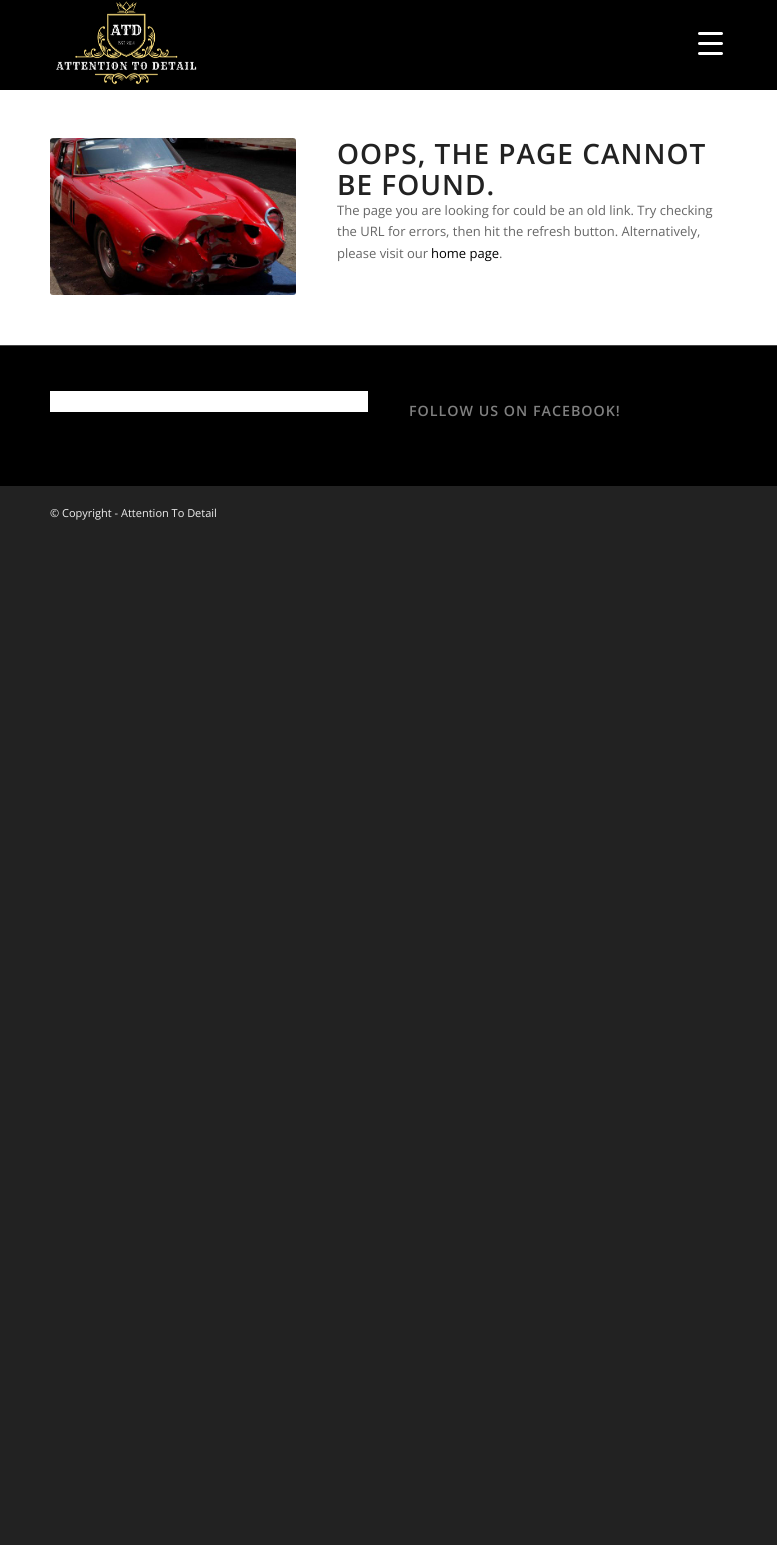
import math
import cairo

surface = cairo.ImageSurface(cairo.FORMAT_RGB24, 777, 1545)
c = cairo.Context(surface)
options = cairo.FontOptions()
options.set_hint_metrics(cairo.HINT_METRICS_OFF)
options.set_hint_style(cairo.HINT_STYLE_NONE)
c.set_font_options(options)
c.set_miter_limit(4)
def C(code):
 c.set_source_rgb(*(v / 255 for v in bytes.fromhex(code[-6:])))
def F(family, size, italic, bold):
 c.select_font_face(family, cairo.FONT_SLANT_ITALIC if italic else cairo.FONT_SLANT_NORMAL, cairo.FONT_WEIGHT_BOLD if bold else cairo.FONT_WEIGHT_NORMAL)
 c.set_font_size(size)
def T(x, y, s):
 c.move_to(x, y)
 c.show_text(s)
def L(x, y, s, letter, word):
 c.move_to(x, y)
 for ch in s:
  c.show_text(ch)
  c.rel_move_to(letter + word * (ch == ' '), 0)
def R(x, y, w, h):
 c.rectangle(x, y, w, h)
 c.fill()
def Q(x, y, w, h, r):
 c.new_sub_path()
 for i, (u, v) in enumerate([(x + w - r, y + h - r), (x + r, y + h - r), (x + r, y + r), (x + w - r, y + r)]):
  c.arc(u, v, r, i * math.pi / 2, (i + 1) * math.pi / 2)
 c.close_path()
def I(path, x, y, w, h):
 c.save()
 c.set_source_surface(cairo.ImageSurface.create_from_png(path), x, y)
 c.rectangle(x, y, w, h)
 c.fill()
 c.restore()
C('222222')
c.paint()
C('000000')
R(0,0,777,90)
C('ffffff')
Q(698,42,25,3,1.5)
c.fill()
Q(698,32,25,3,1.5)
c.fill()
Q(698,52,25,3,1.5)
c.fill()
I('1.png',56,1,141,84)
C('000000')
R(0,346,777,140)
C('ffffff')
R(0,90,777,255)
I('2.png',50,138,246,157)
F('Open Sans SemiBold',28,0,0)
C('222222')
L(337,164,'OOPS, THE PAGE CANNOT',1,0)
L(337,195,'BE FOUND.',1,0)
F('Open Sans',13,0,0)
C('666666')
T(337,215,'The page you are looking for could be an old link. Try checking')
T(337,236,'the URL for errors, then hit the refresh button. Alternatively,')
T(337,258,'please visit our')
C('000000')
T(431,258,'home page')
C('666666')
T(499,258,'.')
C('444444')
R(0,345,777,1)
C('ffffff')
R(50,391,318,21)
F('Open Sans SemiBold',14.25,0,0)
C('808080')
L(409,416,'FOLLOW US ON FACEBOOK!',1,0)
F('Open Sans',11,0,0)
C('eeeeee')
T(50,517,'© Copyright - Attention To Detail')
surface.write_to_png('o.png')
